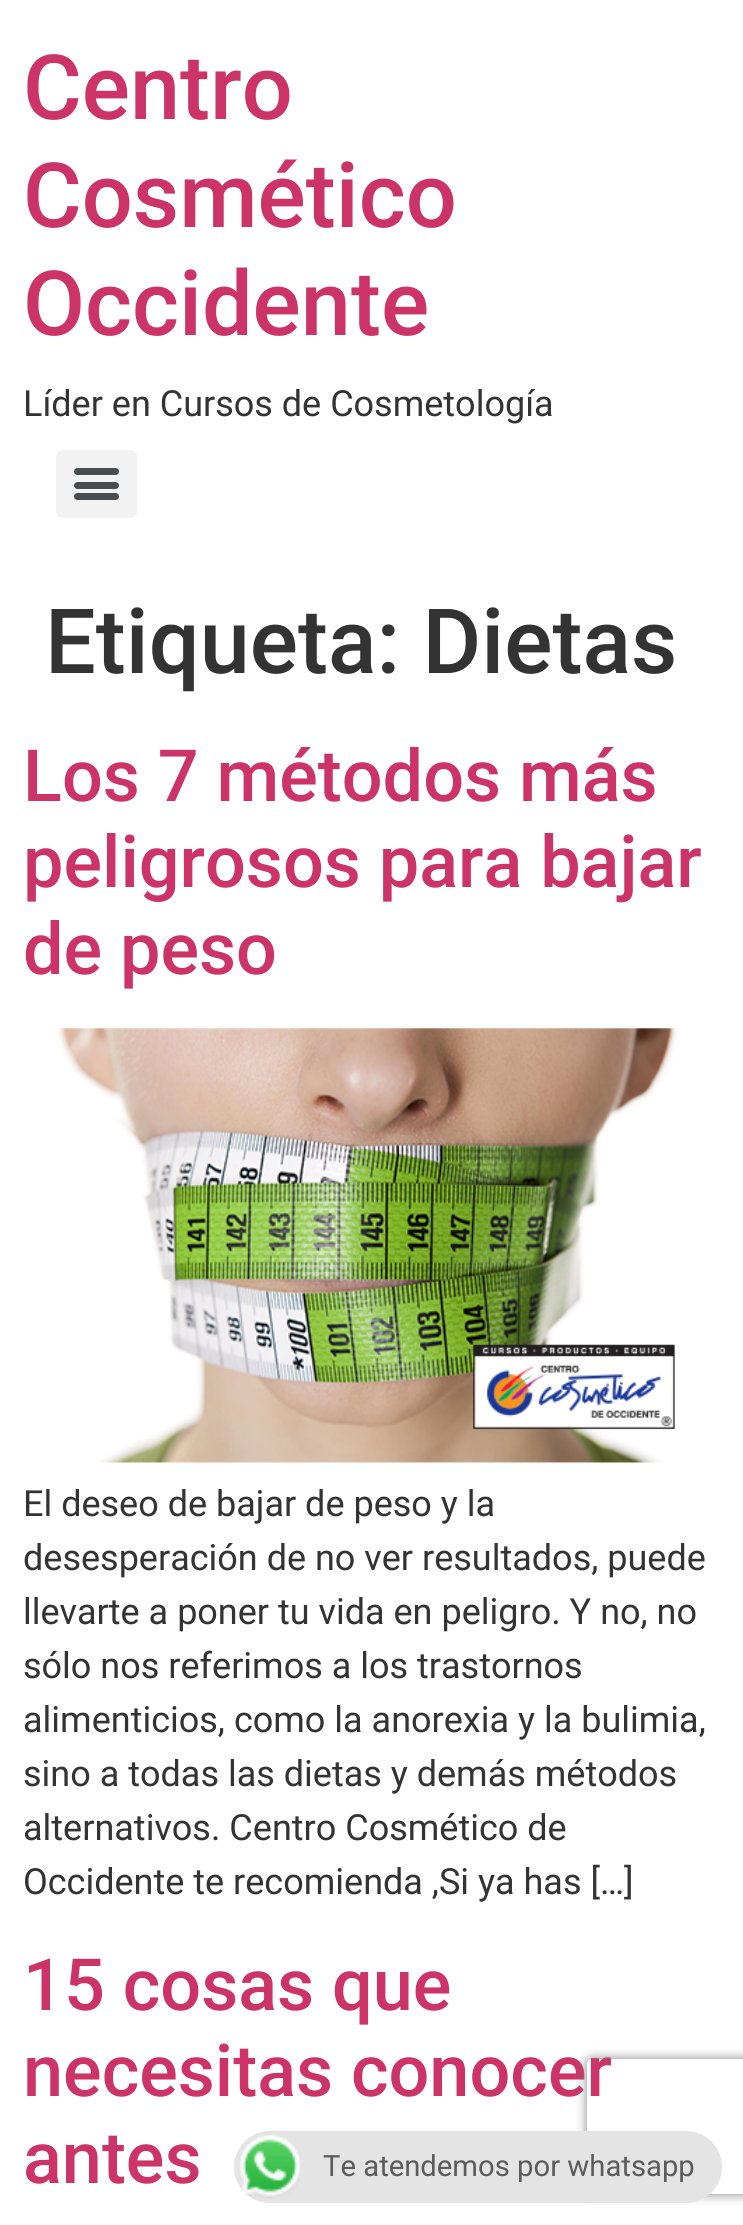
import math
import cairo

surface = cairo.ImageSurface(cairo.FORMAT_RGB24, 743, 2225)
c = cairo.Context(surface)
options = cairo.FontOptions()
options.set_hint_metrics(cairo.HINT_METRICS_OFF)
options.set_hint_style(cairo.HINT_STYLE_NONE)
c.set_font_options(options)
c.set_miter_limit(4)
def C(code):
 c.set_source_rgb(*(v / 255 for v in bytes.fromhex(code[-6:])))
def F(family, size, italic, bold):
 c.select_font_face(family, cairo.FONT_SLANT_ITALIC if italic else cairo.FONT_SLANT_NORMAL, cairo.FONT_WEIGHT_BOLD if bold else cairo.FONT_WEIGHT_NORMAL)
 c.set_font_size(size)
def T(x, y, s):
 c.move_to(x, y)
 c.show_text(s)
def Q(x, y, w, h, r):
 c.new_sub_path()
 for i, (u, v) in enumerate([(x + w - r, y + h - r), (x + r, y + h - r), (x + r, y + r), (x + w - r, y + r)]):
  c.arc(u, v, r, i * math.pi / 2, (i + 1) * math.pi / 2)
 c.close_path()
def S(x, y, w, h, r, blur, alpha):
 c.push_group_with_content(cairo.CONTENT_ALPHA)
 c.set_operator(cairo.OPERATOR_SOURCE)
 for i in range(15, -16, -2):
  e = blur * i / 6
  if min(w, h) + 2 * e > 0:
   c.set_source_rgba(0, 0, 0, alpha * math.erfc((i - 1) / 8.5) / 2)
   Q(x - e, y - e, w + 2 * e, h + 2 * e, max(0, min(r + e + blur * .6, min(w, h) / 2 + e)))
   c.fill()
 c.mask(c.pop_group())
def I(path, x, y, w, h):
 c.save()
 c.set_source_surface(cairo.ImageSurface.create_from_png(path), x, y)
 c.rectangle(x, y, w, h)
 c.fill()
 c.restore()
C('ffffff')
c.paint()
F('Roboto Medium',90,0,0)
C('cc3366')
T(23,119,'Centro')
T(23,227,'Cosmético')
T(23,335,'Occidente')
F('Roboto',36,0,0)
C('333333')
T(23,416,'Líder en Cursos de Cosmetología')
C('f2f2f2')
Q(56,450,81,68,7)
c.fill()
C('494c4f')
Q(74,482,45,7,3.5)
c.fill()
Q(74,468,45,7,3.5)
c.fill()
Q(74,493,45,7,3.5)
c.fill()
F('Roboto Medium',90,0,0)
C('333333')
T(45,673,'Etiqueta: Dietas')
F('Roboto Medium',72,0,0)
C('cc3366')
T(23,801,'Los 7 métodos más')
T(23,887,'peligrosos para bajar')
T(23,974,'de peso')
I('1.png',57,1028,620,435)
F('Roboto',36,0,0)
C('333333')
T(23,1516,'El deseo de bajar de peso y la')
T(23,1570,'desesperación de no ver resultados, puede')
T(23,1624,'llevarte a poner tu vida en peligro. Y no, no')
T(23,1678,'sólo nos referimos a los trastornos')
T(23,1732,'alimenticios, como la anorexia y la bulimia,')
T(23,1786,'sino a todas las dietas y demás métodos')
T(23,1840,'alternativos. Centro Cosmético de')
T(23,1894,'Occidente te recomienda ,Si ya has […]')
F('Roboto Medium',72,0,0)
C('cc3366')
T(23,2010,'15 cosas que')
T(23,2096,'necesitas conocer')
T(23,2183,'antes')
c.save()
c.set_fill_rule(cairo.FILL_RULE_EVEN_ODD)
c.new_path()
c.move_to(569,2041)
c.line_to(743,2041)
c.line_to(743,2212)
c.line_to(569,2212)
c.close_path()
c.move_to(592,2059)
c.line_to(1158,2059)
c.curve_to(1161,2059,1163,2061,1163,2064)
c.line_to(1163,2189)
c.curve_to(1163,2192,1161,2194,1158,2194)
c.line_to(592,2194)
c.curve_to(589,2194,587,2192,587,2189)
c.line_to(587,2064)
c.curve_to(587,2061,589,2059,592,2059)
c.close_path()
c.clip()
C('808080')
S(587,2059,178,135,5,5.5,1)
c.restore()
C('e4e4e4')
Q(234,2131,488,72,36)
c.fill()
I('2.png',239,2135,62,64)
F('Roboto',29.25,0,0)
C('5b5b5b')
T(323,2176,'Te atendemos por whatsapp')
surface.write_to_png('o.png')
